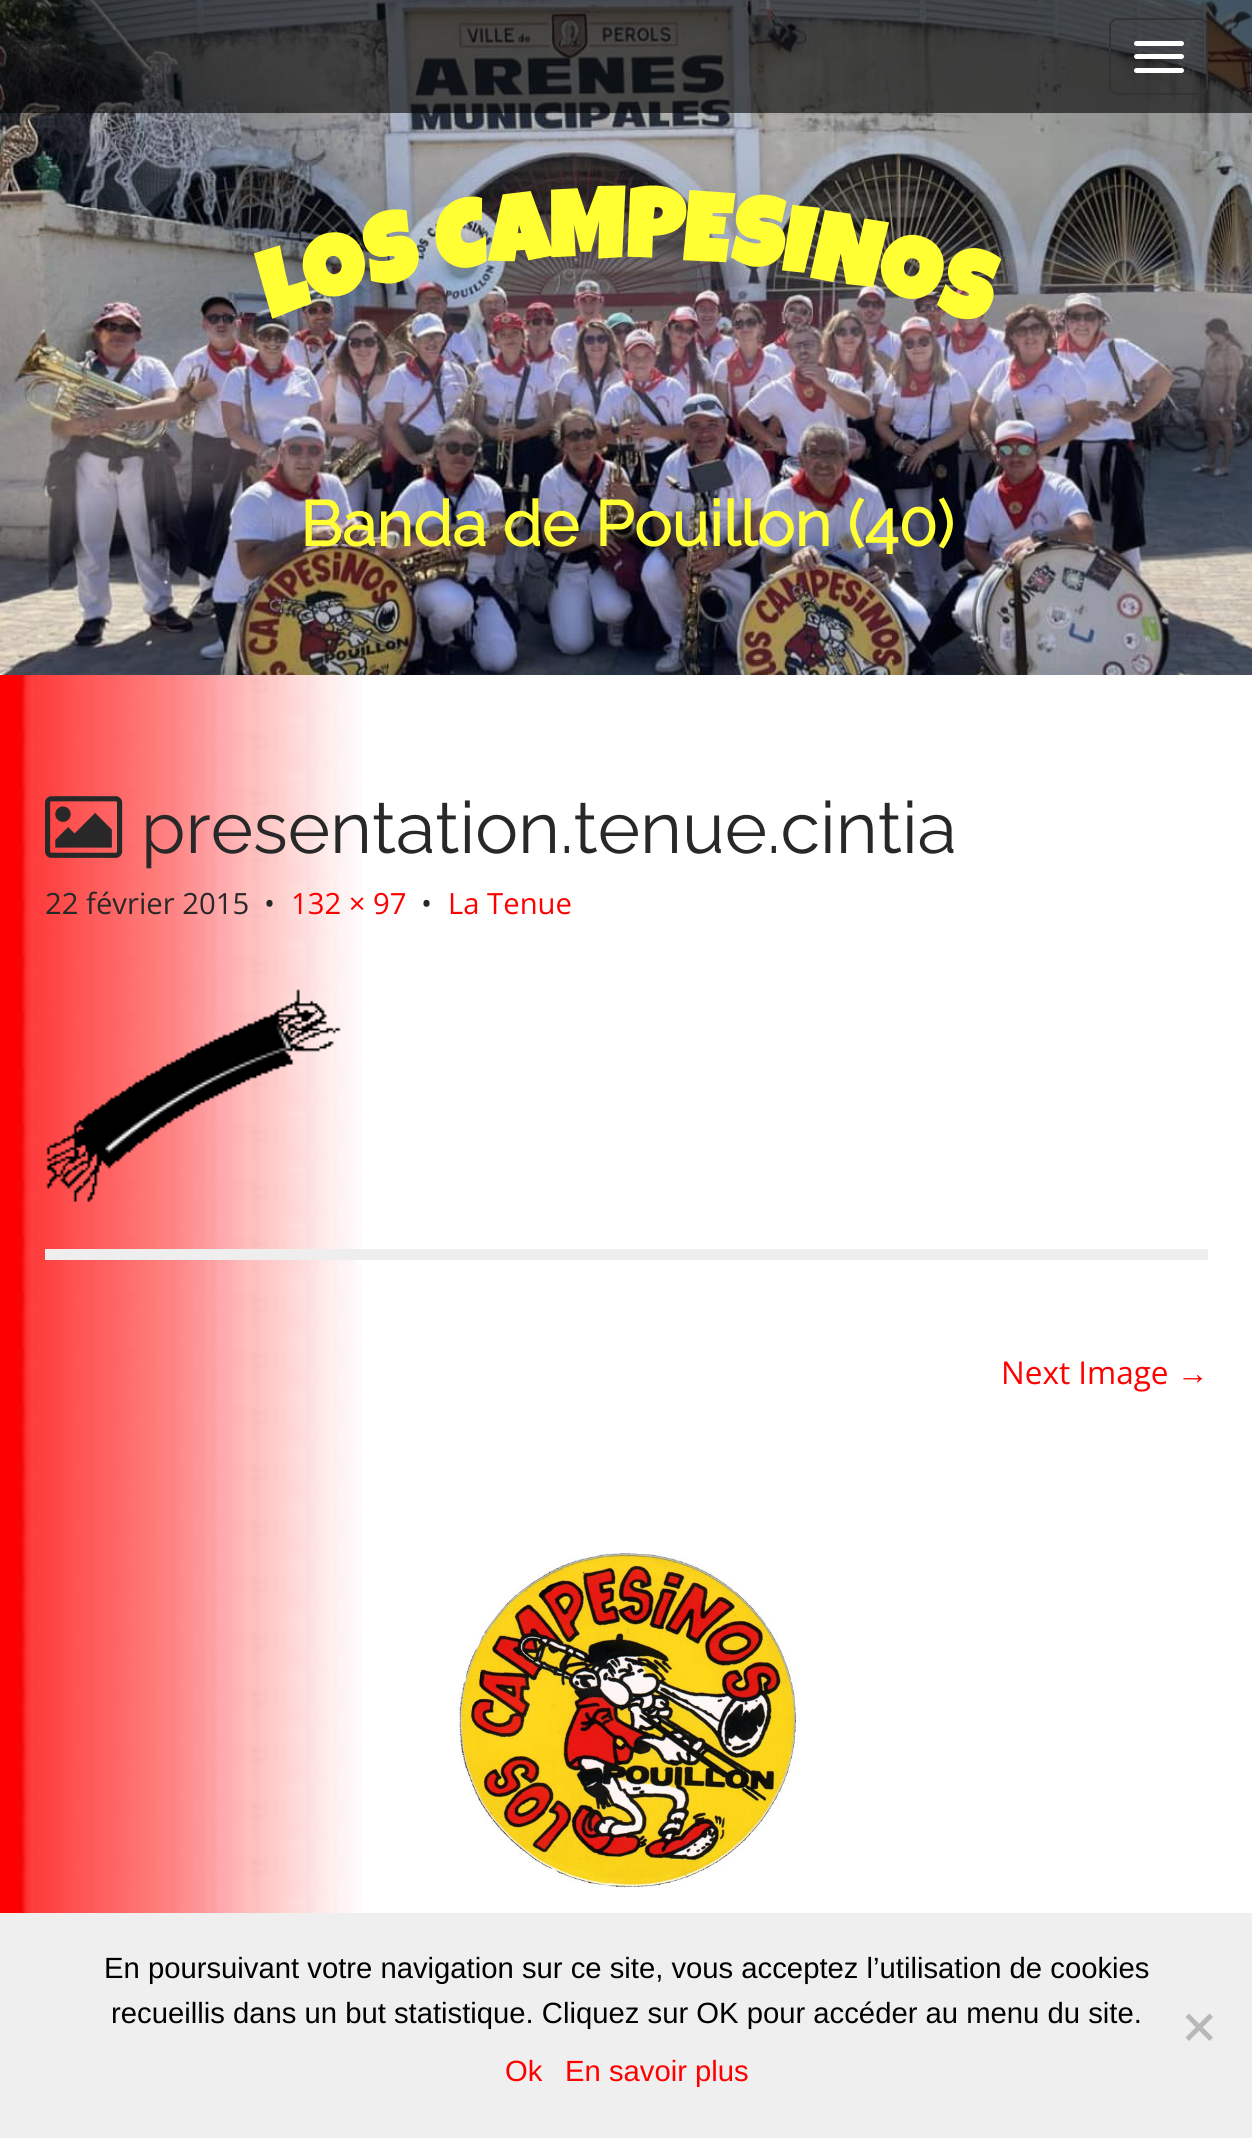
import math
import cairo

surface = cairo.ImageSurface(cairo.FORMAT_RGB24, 1252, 2138)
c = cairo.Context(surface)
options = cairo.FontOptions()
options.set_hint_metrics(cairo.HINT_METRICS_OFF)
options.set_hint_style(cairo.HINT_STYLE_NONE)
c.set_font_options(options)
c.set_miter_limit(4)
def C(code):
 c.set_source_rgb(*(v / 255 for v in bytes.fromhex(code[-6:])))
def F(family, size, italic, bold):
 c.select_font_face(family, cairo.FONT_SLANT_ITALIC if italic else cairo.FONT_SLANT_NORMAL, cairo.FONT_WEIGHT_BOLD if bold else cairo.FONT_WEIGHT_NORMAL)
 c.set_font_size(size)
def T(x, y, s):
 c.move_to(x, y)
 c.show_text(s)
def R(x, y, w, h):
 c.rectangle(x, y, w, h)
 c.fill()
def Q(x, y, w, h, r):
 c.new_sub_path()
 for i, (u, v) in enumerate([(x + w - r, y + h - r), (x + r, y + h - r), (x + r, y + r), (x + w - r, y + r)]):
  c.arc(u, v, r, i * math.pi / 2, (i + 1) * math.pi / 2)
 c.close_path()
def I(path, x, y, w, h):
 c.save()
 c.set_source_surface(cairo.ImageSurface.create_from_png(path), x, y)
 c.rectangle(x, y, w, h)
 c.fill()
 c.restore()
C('ffffff')
c.paint()
I('1.png',0,675,362,1238)
I('2.png',0,0,1252,675)
c.set_source_rgba(0,0,0,0.6)
R(0,0,1252,113)
Q(1110,19,97,75,8)
C('333333')
c.stroke()
C('ffffff')
Q(1134,41,50,5,2.5)
c.fill()
Q(1134,54,50,5,2.5)
c.fill()
Q(1134,68,50,5,2.5)
c.fill()
F('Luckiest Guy',96,0,1)
C('ffff33')
c.save()
c.translate(271,322)
c.rotate(-17 * math.pi / 180)
T(0,0,'L')
c.restore()
c.save()
c.translate(311,305)
c.rotate(-14 * math.pi / 180)
T(0,0,'O')
c.restore()
c.save()
c.translate(371,287)
c.rotate(-11 * math.pi / 180)
T(0,0,'S')
c.restore()
c.save()
c.translate(439,272)
c.rotate(-7 * math.pi / 180)
T(0,0,'C')
c.restore()
c.save()
c.translate(490,264)
c.rotate(-4 * math.pi / 180)
T(0,0,'A')
c.restore()
c.save()
c.translate(549,258)
c.rotate(-1 * math.pi / 180)
T(0,0,'M')
c.restore()
c.save()
c.translate(625,256)
c.rotate(2 * math.pi / 180)
T(0,0,'P')
c.restore()
c.save()
c.translate(681,260)
c.rotate(4 * math.pi / 180)
T(0,0,'E')
c.restore()
c.save()
c.translate(729,263)
c.rotate(7 * math.pi / 180)
T(0,0,'S')
c.restore()
c.save()
c.translate(779,271)
c.rotate(9 * math.pi / 180)
T(0,0,'I')
c.restore()
c.save()
c.translate(808,278)
c.rotate(11 * math.pi / 180)
T(0,0,'N')
c.restore()
c.save()
c.translate(873,292)
c.rotate(14 * math.pi / 180)
T(0,0,'O')
c.restore()
c.save()
c.translate(934,310)
c.rotate(17 * math.pi / 180)
T(0,0,'S')
c.restore()
F('Raleway',63,0,1)
T(300,546,'Banda de Pouillon (40)')
C('eeeeee')
R(45,1249,1163,11)
I('3.png',45,796,78,62)
F('Raleway Thin',72,0,0)
C('282828')
T(141,853,'presentation.tenue.cintia')
F('Open Sans',29.25,0,0)
T(45,914,'22 février 2015')
T(264,914,'•')
C('ff0000')
T(291,914,'132 × 97')
C('282828')
T(421,914,'•')
C('ff0000')
T(448,914,'La Tenue')
I('4.png',46,989,295,214)
F('Open Sans',31.5,0,0)
T(1001,1384,'Next Image')
F('Liberation Sans',31.5,0,0)
T(1177,1384,'→')
I('5.png',459,1552,338,336)
C('efefef')
R(0,1913,1252,225)
F('Liberation Sans',29.25,0,0)
C('000000')
T(104,1978,'En poursuivant votre navigation sur ce site, vous acceptez l’utilisation de cookies')
T(111,2023,'recueillis dans un but statistique. Cliquez sur OK pour accéder au menu du site.')
C('b8b8b8')
c.new_path()
c.move_to(1209.5,2013.5)
c.line_to(1213,2017)
c.line_to(1189,2041)
c.line_to(1185.5,2037.5)
c.close_path()
c.fill()
c.new_path()
c.move_to(1185.5,2017)
c.line_to(1189,2013.5)
c.line_to(1213,2037.5)
c.line_to(1209.5,2041)
c.close_path()
c.fill()
C('ff0000')
T(505,2081,'Ok')
T(565,2081,'En savoir plus')
surface.write_to_png('o.png')
